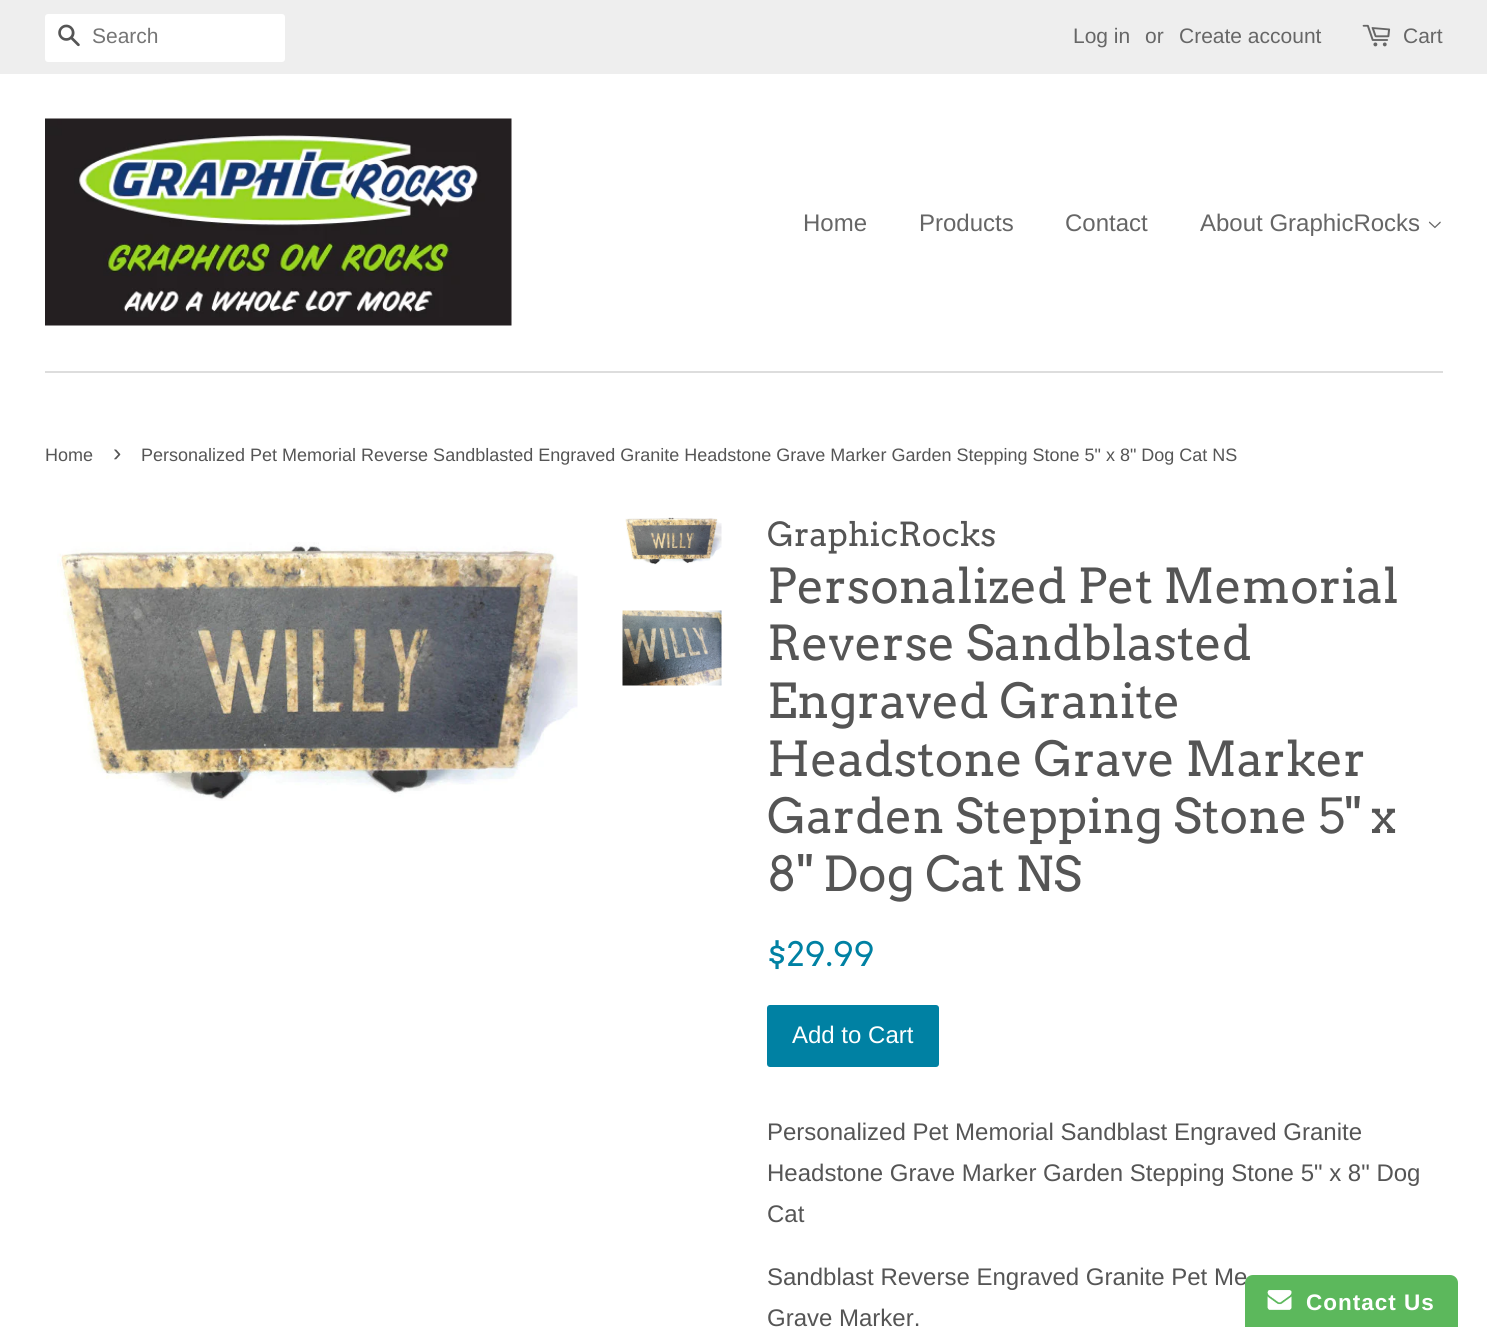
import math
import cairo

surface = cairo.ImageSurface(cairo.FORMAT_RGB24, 1487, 1327)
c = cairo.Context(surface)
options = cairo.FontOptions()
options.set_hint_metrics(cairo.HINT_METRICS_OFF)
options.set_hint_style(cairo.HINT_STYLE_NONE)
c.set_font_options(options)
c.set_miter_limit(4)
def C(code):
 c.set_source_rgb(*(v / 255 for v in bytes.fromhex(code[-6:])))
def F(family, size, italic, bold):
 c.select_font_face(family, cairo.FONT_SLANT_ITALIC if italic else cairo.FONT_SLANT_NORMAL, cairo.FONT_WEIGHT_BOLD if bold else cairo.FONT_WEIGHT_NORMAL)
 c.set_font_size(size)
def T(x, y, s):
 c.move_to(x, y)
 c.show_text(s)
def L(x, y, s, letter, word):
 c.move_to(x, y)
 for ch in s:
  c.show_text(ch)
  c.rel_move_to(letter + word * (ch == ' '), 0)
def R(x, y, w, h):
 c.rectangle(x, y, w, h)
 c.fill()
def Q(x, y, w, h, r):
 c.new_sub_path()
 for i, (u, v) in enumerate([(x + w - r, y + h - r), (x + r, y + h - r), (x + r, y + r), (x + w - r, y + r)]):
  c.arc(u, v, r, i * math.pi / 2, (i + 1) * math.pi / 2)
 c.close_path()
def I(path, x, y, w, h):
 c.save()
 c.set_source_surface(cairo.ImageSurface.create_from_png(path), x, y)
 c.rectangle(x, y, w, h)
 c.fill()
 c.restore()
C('ffffff')
c.paint()
C('eeeeee')
R(0,0,1487,74)
C('ffffff')
Q(45,14,240,48,3)
c.fill()
I('1.png',58,24,22,23)
F('Liberation Sans',21,0,0)
C('757575')
T(92,43,'Search')
C('666666')
T(1073,43,'Log in')
T(1145,43,'or')
T(1179,43,'Create account')
I('2.png',1362,24,29,23)
T(1403,43,'Cart')
C('dddddd')
R(45,371,1398,2)
I('3.png',45,118,467,208)
F('Liberation Sans',24,0,0)
C('666666')
T(803,231,'Home')
T(919,231,'Products')
T(1065,231,'Contact')
T(1200,231,'About GraphicRocks')
I('4.png',1428,221,13,8)
F('Liberation Sans',18,0,0)
C('555555')
T(45,461,'Home')
F('Liberation Sans',25,0,0)
T(113,461,'›')
F('Liberation Sans',18,0,0)
T(141,461,'Personalized Pet Memorial Reverse Sandblasted Engraved Granite Headstone Grave Marker Garden Stepping Stone 5" x 8" Dog Cat NS')
I('5.png',57,542,521,259)
I('6.png',625,517,97,48)
I('7.png',622,610,100,76)
F('Arvo',33,0,0)
T(767,546,'GraphicRocks')
F('Arvo',48,0,0)
T(767,603,'Personalized Pet Memorial')
T(767,660,'Reverse Sandblasted')
T(767,718,'Engraved Granite')
T(767,776,'Headstone Grave Marker')
T(767,833,'Garden Stepping Stone 5" x')
T(767,891,'8" Dog Cat NS')
F('Arvo',33.5,0,0)
C('0081a3')
T(767,966,'$29.99')
Q(767,1005,172,62,3)
c.fill()
F('Liberation Sans',24,0,0)
C('ffffff')
T(792,1043,'Add to Cart')
C('555555')
T(767,1140,'Personalized Pet Memorial Sandblast Engraved Granite')
T(767,1181,'Headstone Grave Marker Garden Stepping Stone 5" x 8" Dog')
T(767,1222,'Cat')
T(767,1285,'Sandblast Reverse Engraved Granite Pet Me')
T(767,1326,'Grave Marker.')
C('5cb85c')
c.new_path()
c.move_to(1253,1275)
c.line_to(1450,1275)
c.curve_to(1454.5,1275,1458,1278.5,1458,1283)
c.line_to(1458,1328)
c.line_to(1245,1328)
c.line_to(1245,1283)
c.curve_to(1245,1278.5,1248.5,1275,1253,1275)
c.close_path()
c.fill()
I('8.png',1267,1290,25,20)
F('Liberation Sans',22.5,0,1)
C('ffffff')
L(1306,1310,'Contact Us',1,0)
surface.write_to_png('o.png')
